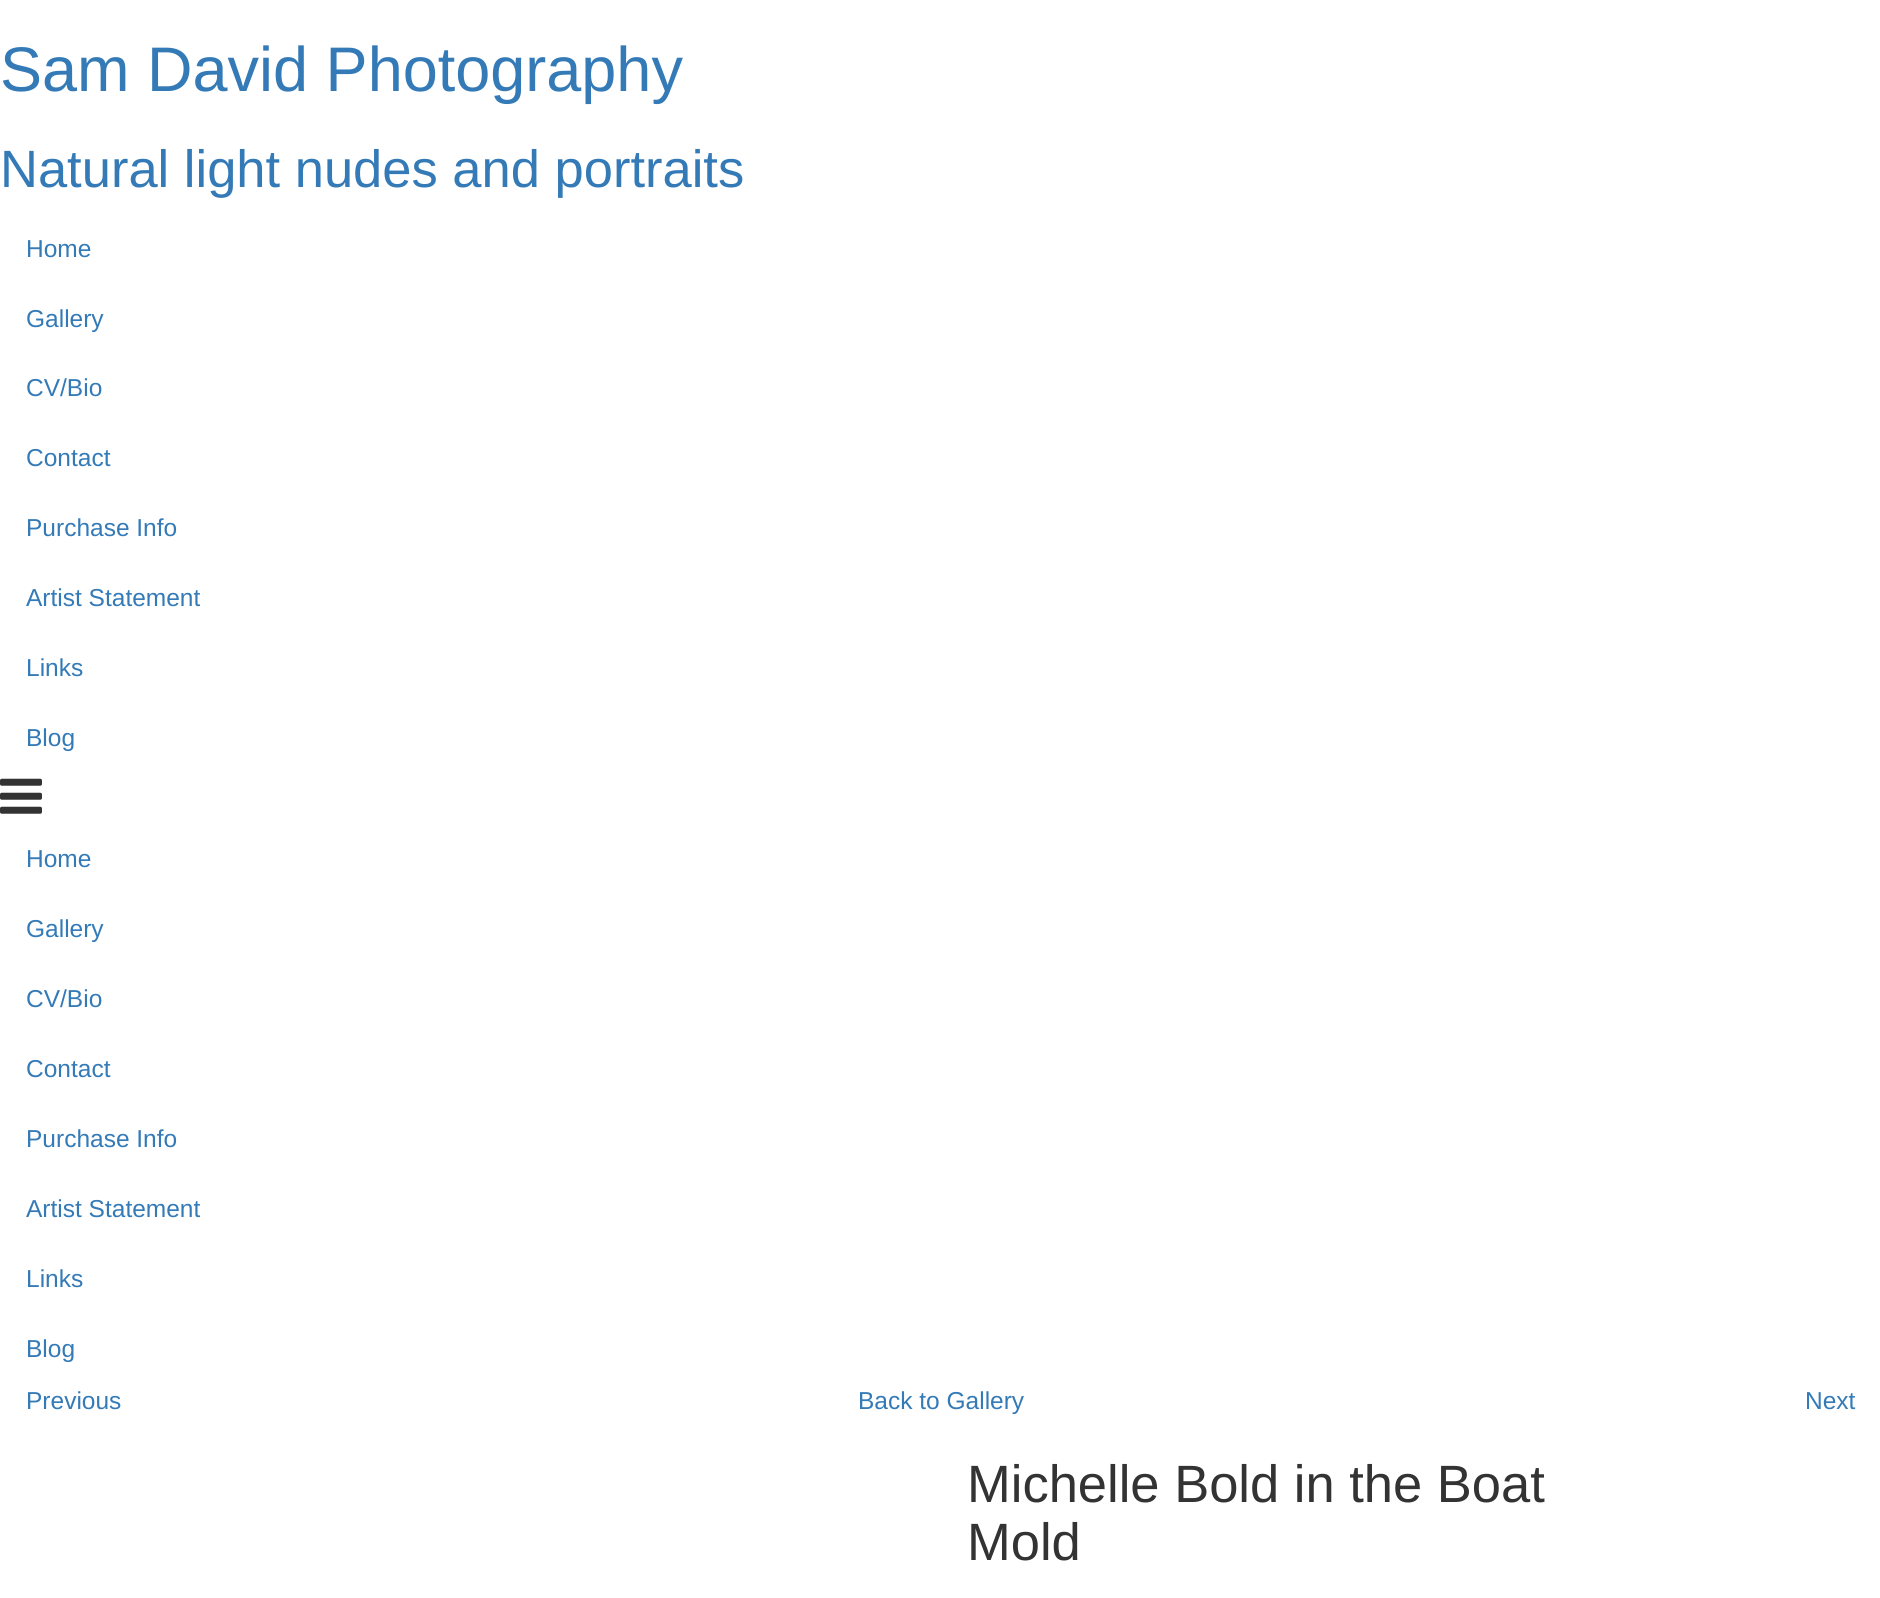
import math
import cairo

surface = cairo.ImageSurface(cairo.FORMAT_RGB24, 1880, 1598)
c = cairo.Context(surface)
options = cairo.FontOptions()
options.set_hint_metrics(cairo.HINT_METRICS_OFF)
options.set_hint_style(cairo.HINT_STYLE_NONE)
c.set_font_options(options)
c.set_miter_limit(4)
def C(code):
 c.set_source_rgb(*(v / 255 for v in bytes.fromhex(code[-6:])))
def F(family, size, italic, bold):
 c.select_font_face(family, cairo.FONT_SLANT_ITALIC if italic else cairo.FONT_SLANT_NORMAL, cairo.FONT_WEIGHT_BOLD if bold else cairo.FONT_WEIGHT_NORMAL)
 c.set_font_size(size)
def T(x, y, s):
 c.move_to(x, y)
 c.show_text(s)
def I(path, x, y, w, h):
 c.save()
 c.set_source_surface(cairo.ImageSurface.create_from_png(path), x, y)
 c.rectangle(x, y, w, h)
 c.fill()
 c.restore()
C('ffffff')
c.paint()
F('Liberation Sans',63,0,0)
C('337ab7')
T(0,91,'Sam David Photography')
F('Liberation Sans',52.5,0,0)
T(0,187,'Natural light nudes and portraits')
F('Liberation Sans',24.5,0,0)
T(26,257,'Home')
T(26,327,'Gallery')
T(26,396,'CV/Bio')
T(26,466,'Contact')
T(26,536,'Purchase Info')
T(26,606,'Artist Statement')
T(26,676,'Links')
T(26,746,'Blog')
I('1.png',0,778,42,36)
T(26,867,'Home')
T(26,937,'Gallery')
T(26,1007,'CV/Bio')
T(26,1077,'Contact')
T(26,1147,'Purchase Info')
T(26,1217,'Artist Statement')
T(26,1287,'Links')
T(26,1357,'Blog')
T(26,1409,'Previous')
T(858,1409,'Back to Gallery')
T(1805,1409,'Next')
F('Liberation Sans',52.5,0,0)
C('333333')
T(967,1502,'Michelle Bold in the Boat')
T(967,1560,'Mold')
surface.write_to_png('o.png')
